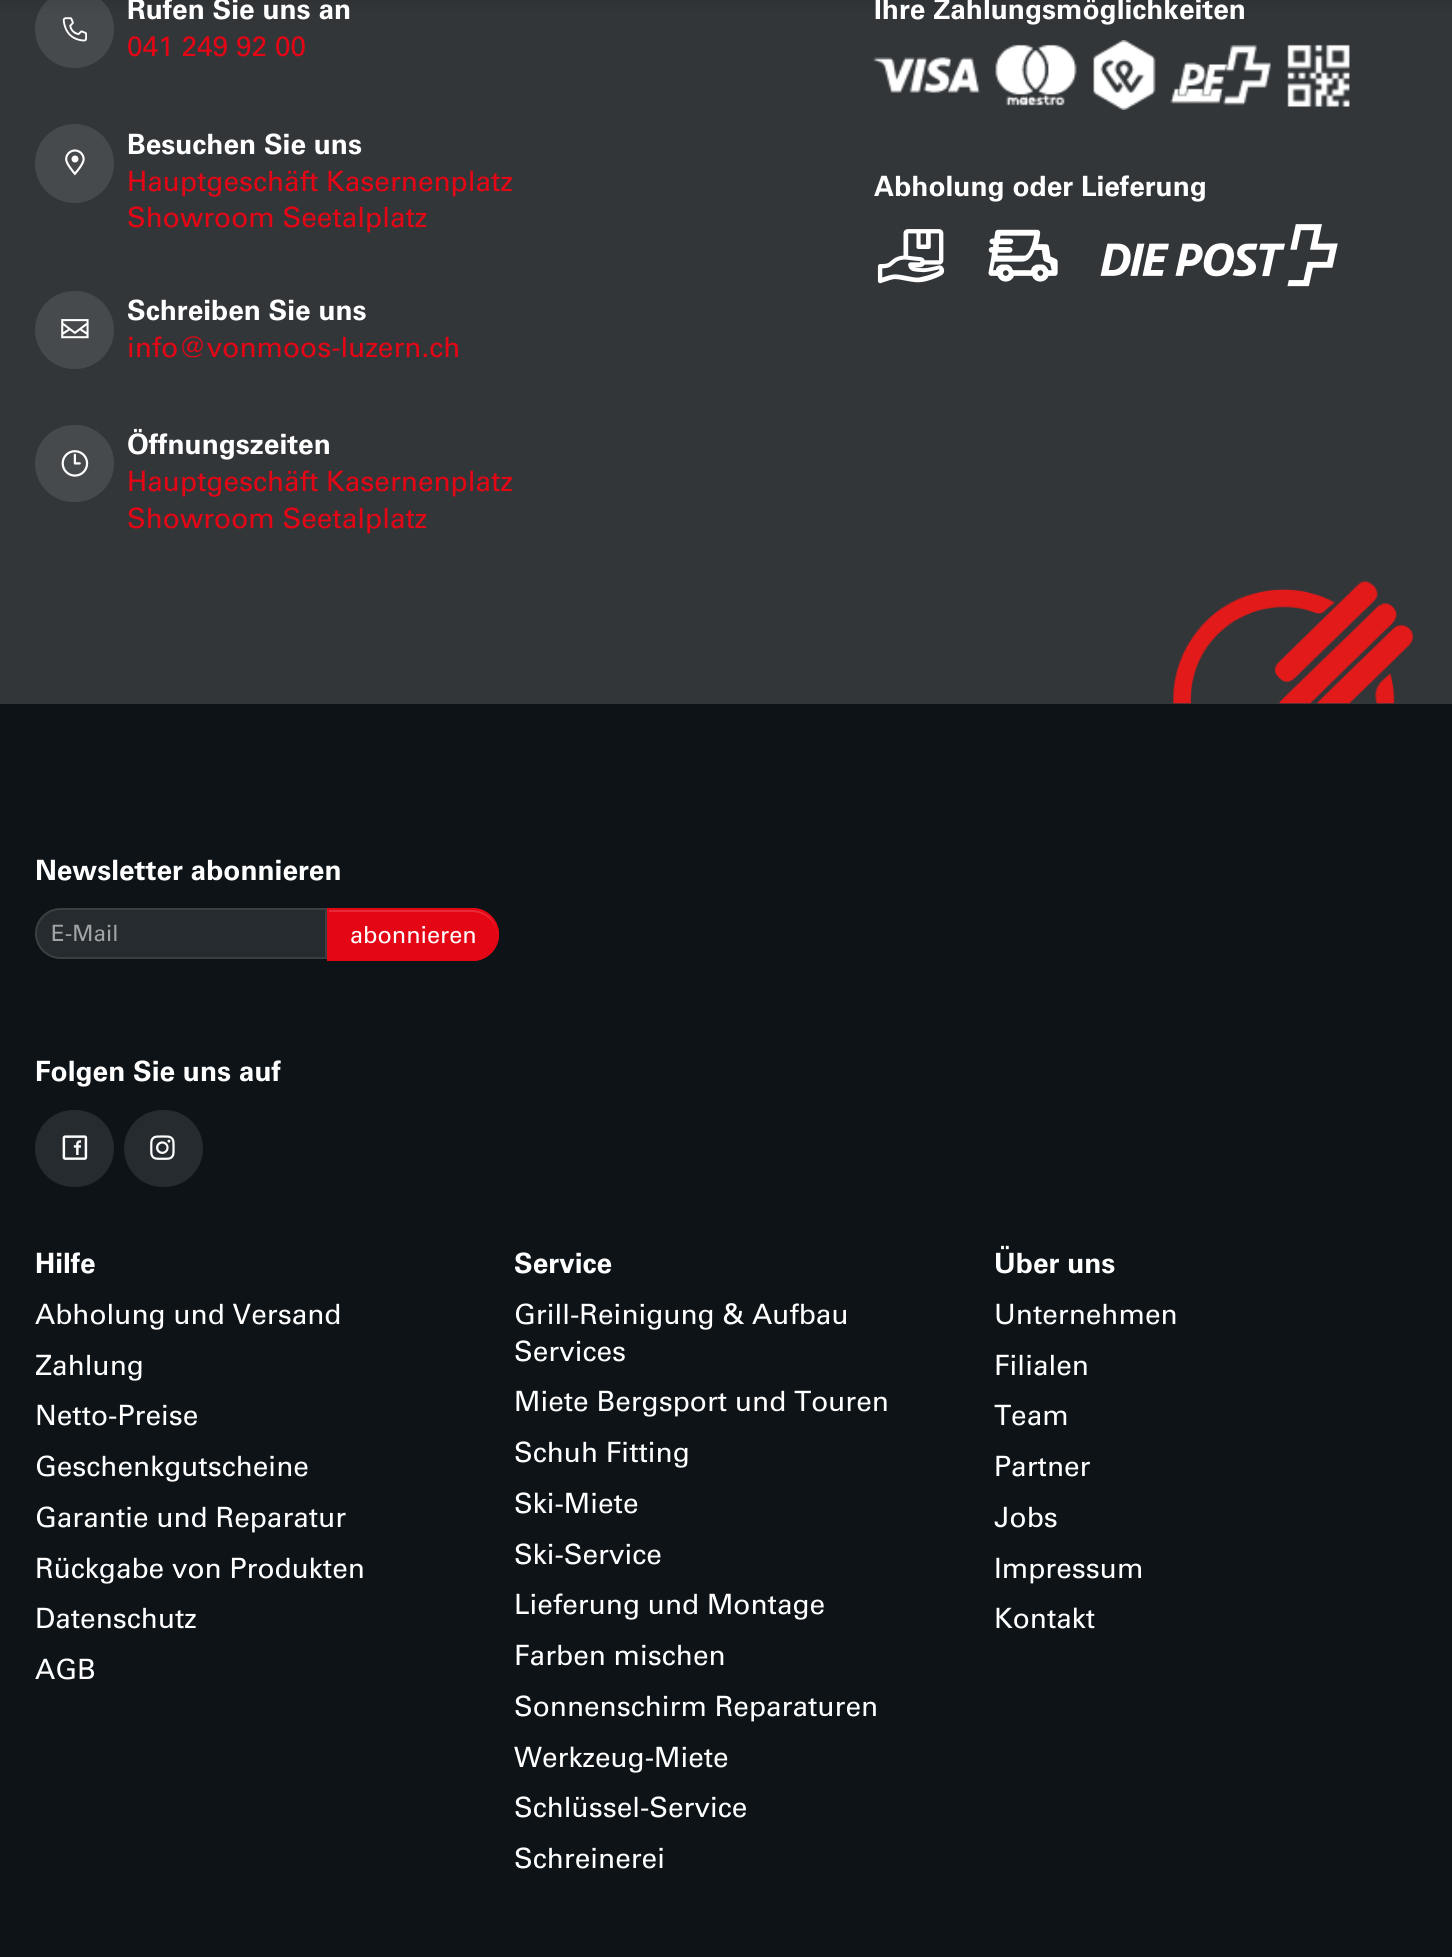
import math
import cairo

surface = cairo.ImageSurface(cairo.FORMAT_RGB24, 1452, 1957)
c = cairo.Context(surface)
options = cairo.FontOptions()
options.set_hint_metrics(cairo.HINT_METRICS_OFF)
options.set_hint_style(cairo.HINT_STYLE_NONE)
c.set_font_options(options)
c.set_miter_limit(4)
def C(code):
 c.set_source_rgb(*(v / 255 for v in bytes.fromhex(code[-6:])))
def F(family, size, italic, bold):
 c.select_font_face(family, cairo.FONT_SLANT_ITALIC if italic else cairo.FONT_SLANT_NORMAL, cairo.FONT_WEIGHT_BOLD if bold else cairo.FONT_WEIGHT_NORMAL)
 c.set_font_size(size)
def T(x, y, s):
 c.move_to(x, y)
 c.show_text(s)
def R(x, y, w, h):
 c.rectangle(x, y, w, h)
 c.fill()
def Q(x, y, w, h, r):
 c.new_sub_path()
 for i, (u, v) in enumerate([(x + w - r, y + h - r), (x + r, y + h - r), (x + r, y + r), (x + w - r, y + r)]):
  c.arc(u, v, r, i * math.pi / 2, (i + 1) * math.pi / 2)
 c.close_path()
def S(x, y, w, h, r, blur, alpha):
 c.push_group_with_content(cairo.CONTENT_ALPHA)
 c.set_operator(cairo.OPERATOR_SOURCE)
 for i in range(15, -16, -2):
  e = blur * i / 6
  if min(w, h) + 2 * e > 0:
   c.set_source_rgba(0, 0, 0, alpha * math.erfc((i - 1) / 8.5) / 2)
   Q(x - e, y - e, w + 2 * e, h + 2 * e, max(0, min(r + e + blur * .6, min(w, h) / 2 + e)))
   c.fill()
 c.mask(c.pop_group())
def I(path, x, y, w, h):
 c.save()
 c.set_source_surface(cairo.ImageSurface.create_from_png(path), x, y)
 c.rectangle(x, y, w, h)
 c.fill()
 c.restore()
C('0d1317')
c.paint()
C('323639')
R(0,0,1452,704)
C('474a4d')
Q(35,-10,79,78,39)
c.fill()
I('1.png',62,17,25,25)
C('000000')
S(0,-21,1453,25,0,7,.1)
F('Univers',28,0,1)
C('ffffff')
T(127,19,'Rufen Sie uns an')
F('Univers',28,0,0)
C('e50615')
T(127,56,'041 249 92 00')
C('474a4d')
c.new_path()
c.arc(74.5,163.5,39.5,0,2 * math.pi)
c.fill()
I('2.png',65,149,20,27)
F('Univers',28,0,1)
C('ffffff')
T(127,154,'Besuchen Sie uns')
F('Univers',28,0,0)
C('e50615')
T(127,191,'Hauptgeschäft Kasernenplatz')
T(127,227,'Showroom Seetalplatz')
C('474a4d')
Q(35,291,79,78,39)
c.fill()
I('3.png',61,319,28,20)
F('Univers',28,0,1)
C('ffffff')
T(127,320,'Schreiben Sie uns')
F('Univers',28,0,0)
C('e50615')
T(127,357,'info@vonmoos-luzern.ch')
C('474a4d')
Q(35,425,79,77,38.5)
c.fill()
I('4.png',61,450,28,27)
F('Univers',28,0,1)
C('ffffff')
T(127,454,'Öffnungszeiten')
F('Univers',28,0,0)
C('e50615')
T(127,491,'Hauptgeschäft Kasernenplatz')
T(127,528,'Showroom Seetalplatz')
F('Univers',28,0,1)
C('ffffff')
T(874,19,'Ihre Zahlungsmöglichkeiten')
I('5.png',873,40,477,70)
T(874,196,'Abholung oder Lieferung')
I('6.png',877,229,68,55)
I('7.png',988,229,70,53)
I('8.png',1100,224,238,63)
I('9.png',1173,581,241,123)
T(35,880,'Newsletter abonnieren')
C('252b2e')
c.new_path()
c.move_to(60.5,908)
c.line_to(327,908)
c.line_to(327,959)
c.line_to(60.5,959)
c.curve_to(46.5,959,35,947.5,35,933.5)
c.curve_to(35,919.5,46.5,908,60.5,908)
c.close_path()
c.fill()
c.new_path()
c.move_to(60.5,909)
c.line_to(326,909)
c.line_to(326,958)
c.line_to(60.5,958)
c.curve_to(47,958,36,947,36,933.5)
c.curve_to(36,920,47,909,60.5,909)
c.close_path()
c.set_source_rgba(1,1,1,0.1)
c.stroke()
F('Univers',22.5,0,0)
C('a1a3a5')
T(51,941,'E-Mail')
C('e50615')
c.new_path()
c.move_to(327,908)
c.line_to(472.5,908)
c.curve_to(487,908,499,920,499,934.5)
c.curve_to(499,949,487,961,472.5,961)
c.line_to(327,961)
c.close_path()
c.fill()
C('e92b38')
c.new_path()
c.move_to(329,912)
c.line_to(472,912)
c.curve_to(486,912,497,923,497,935)
c.line_to(497,934)
c.curve_to(497,921,486,910,472,910)
c.line_to(329,910)
c.close_path()
c.fill()
c.new_path()
c.move_to(328,909)
c.line_to(472.5,909)
c.curve_to(486.5,909,498,920.5,498,934.5)
c.curve_to(498,948.5,486.5,960,472.5,960)
c.line_to(328,960)
c.close_path()
C('e50615')
c.stroke()
F('Univers',23.5,0,0)
C('ffffff')
T(350,943,'abonnieren')
F('Univers',28,0,1)
T(35,1081,'Folgen Sie uns auf')
C('252b2e')
Q(35,1110,79,77,38.5)
c.fill()
I('10.png',62,1135,26,25)
Q(124,1110,79,77,38.5)
c.fill()
I('11.png',150,1135,25,25)
C('ffffff')
T(35,1273,'Hilfe')
F('Univers',28,0,0)
T(35,1324,'Abholung und Versand')
T(35,1375,'Zahlung')
T(35,1425,'Netto-Preise')
T(35,1476,'Geschenkgutscheine')
T(35,1527,'Garantie und Reparatur')
T(35,1578,'Rückgabe von Produkten')
T(35,1628,'Datenschutz')
T(35,1679,'AGB')
F('Univers',28,0,1)
T(514,1273,'Service')
F('Univers',28,0,0)
T(514,1324,'Grill-Reinigung & Aufbau')
T(514,1361,'Services')
T(514,1411,'Miete Bergsport und Touren')
T(514,1462,'Schuh Fitting')
T(514,1513,'Ski-Miete')
T(514,1564,'Ski-Service')
T(514,1614,'Lieferung und Montage')
T(514,1665,'Farben mischen')
T(514,1716,'Sonnenschirm Reparaturen')
T(514,1767,'Werkzeug-Miete')
T(514,1817,'Schlüssel-Service')
T(514,1868,'Schreinerei')
F('Univers',28,0,1)
T(994,1273,'Über uns')
F('Univers',28,0,0)
T(994,1324,'Unternehmen')
T(994,1375,'Filialen')
T(994,1425,'Team')
T(994,1476,'Partner')
T(994,1527,'Jobs')
T(994,1578,'Impressum')
T(994,1628,'Kontakt')
surface.write_to_png('o.png')
